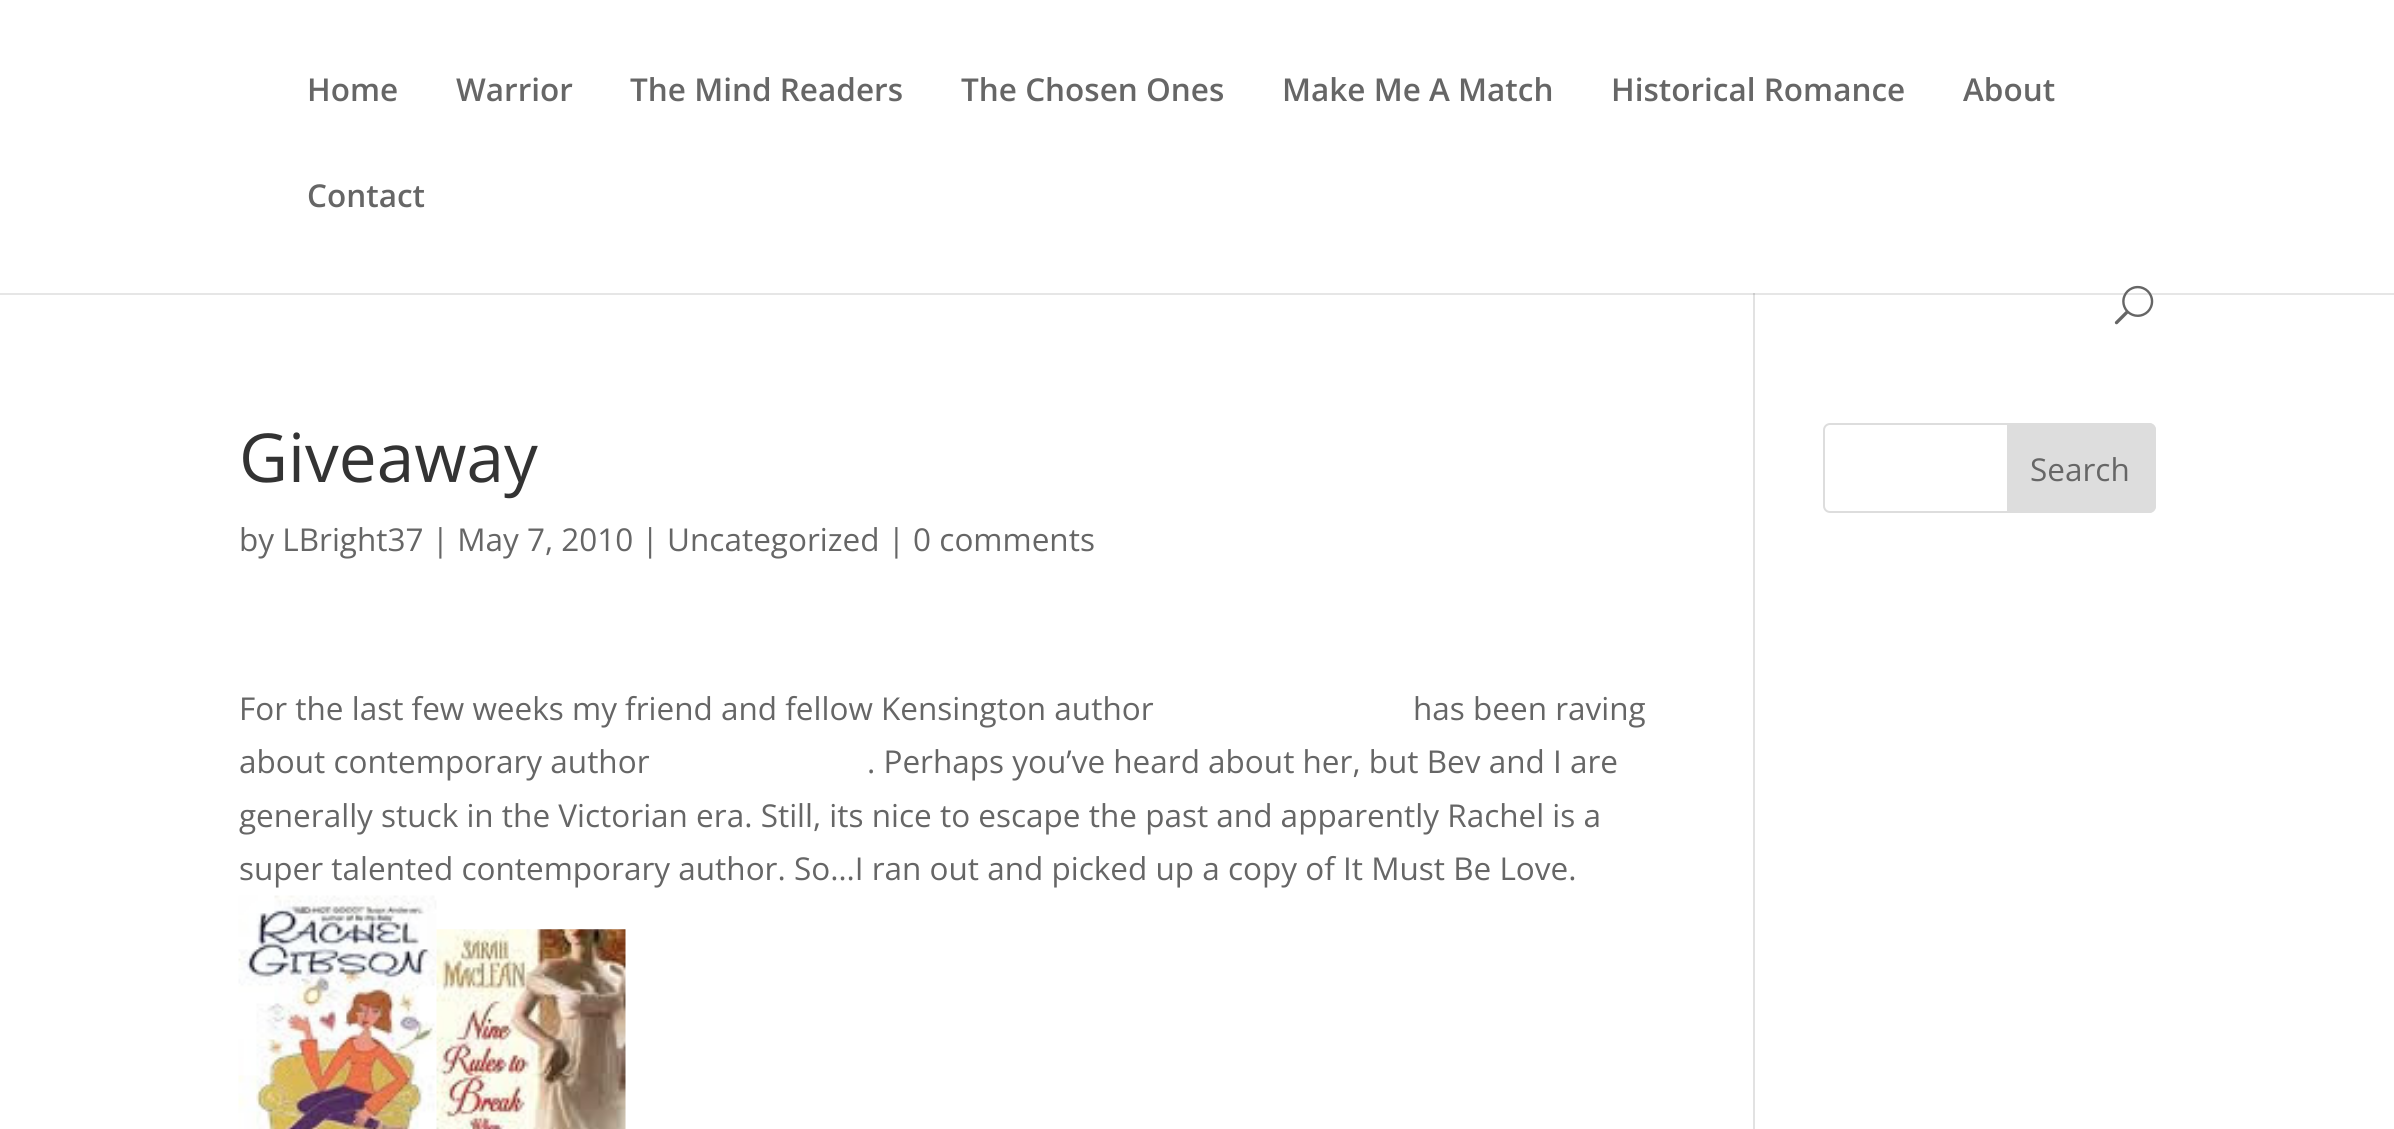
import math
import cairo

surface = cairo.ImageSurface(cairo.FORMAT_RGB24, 2394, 1129)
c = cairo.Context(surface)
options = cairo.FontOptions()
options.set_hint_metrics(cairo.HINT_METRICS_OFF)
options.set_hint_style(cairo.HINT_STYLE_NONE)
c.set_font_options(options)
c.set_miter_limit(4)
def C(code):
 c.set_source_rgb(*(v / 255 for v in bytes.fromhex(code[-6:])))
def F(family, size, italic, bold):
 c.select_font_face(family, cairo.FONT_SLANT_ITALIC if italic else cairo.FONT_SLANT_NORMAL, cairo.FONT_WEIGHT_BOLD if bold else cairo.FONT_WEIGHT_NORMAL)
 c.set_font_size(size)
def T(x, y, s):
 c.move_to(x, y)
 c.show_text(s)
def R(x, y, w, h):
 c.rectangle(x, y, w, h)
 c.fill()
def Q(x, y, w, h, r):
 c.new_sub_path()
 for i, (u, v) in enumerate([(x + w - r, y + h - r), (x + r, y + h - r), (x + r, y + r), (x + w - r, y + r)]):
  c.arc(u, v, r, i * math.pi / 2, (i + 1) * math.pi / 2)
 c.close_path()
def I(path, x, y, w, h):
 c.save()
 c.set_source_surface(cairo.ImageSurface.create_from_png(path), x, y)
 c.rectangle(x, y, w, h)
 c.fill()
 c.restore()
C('ffffff')
c.paint()
C('e6e6e6')
R(0,293,2394,2)
F('Open Sans SemiBold',31.5,0,0)
C('666666')
T(307,101,'Home')
T(456,101,'Warrior')
T(630,101,'The Mind Readers')
T(961,101,'The Chosen Ones')
T(1282,101,'Make Me A Match')
T(1611,101,'Historical Romance')
T(1963,101,'About')
T(307,207,'Contact')
I('1.png',2114,285,40,40)
C('e2e2e2')
R(1753,293,2,836)
C('cbcbcb')
R(1753,293,2,2)
F('Open Sans',67.5,0,0)
C('333333')
T(239,482,'Giveaway')
F('Open Sans',31.5,0,0)
C('666666')
T(239,551,'by LBright37 | May 7, 2010 | Uncategorized | 0 comments')
T(239,720,'For the last few weeks my friend and fellow Kensington author')
T(1413,720,'has been raving')
T(239,773,'about contemporary author')
T(867,773,'. Perhaps you’ve heard about her, but Bev and I are')
T(239,827,'generally stuck in the Victorian era. Still, its nice to escape the past and apparently Rachel is a')
T(239,880,'super talented contemporary author. So…I ran out and picked up a copy of It Must Be Love.')
I('2.png',238,895,199,234)
I('3.png',436,929,190,200)
Q(1824,424,331,88,6)
C('dddddd')
c.stroke()
c.new_path()
c.move_to(2008,424)
c.line_to(2149,424)
c.curve_to(2152.5,424,2155,426.5,2155,430)
c.line_to(2155,506)
c.curve_to(2155,509.5,2152.5,512,2149,512)
c.line_to(2008,512)
c.close_path()
c.fill_preserve()
c.stroke()
C('666666')
T(2030,481,'Search')
surface.write_to_png('o.png')
